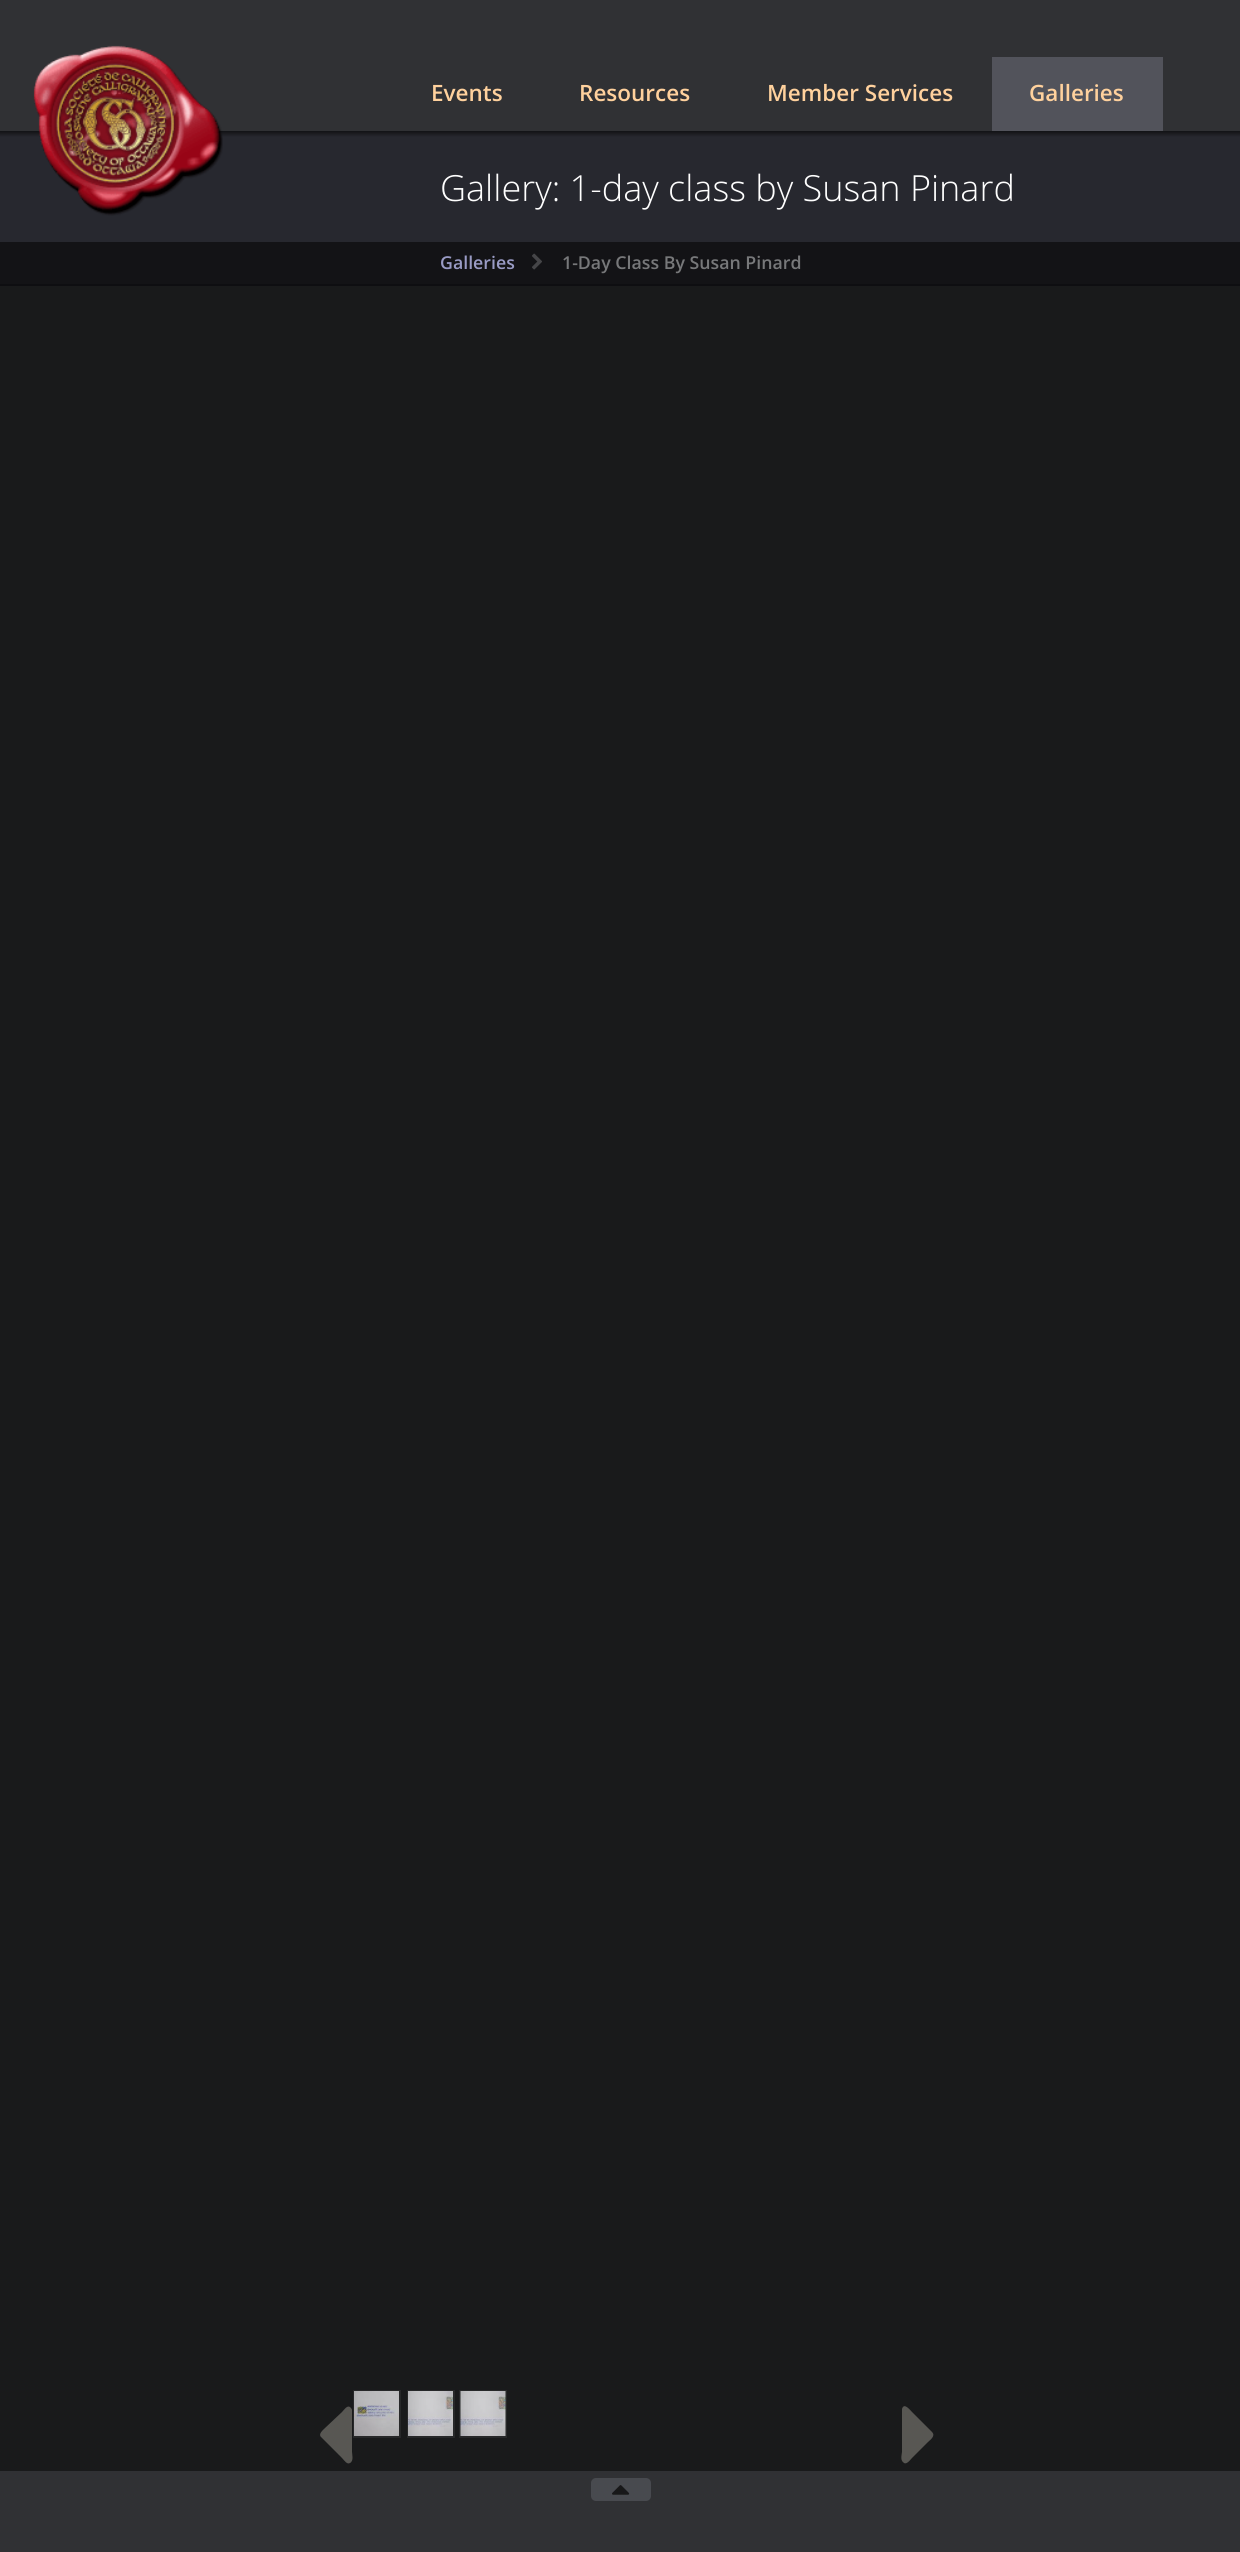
import math
import cairo

surface = cairo.ImageSurface(cairo.FORMAT_RGB24, 1240, 2552)
c = cairo.Context(surface)
options = cairo.FontOptions()
options.set_hint_metrics(cairo.HINT_METRICS_OFF)
options.set_hint_style(cairo.HINT_STYLE_NONE)
c.set_font_options(options)
c.set_miter_limit(4)
def C(code):
 c.set_source_rgb(*(v / 255 for v in bytes.fromhex(code[-6:])))
def F(family, size, italic, bold):
 c.select_font_face(family, cairo.FONT_SLANT_ITALIC if italic else cairo.FONT_SLANT_NORMAL, cairo.FONT_WEIGHT_BOLD if bold else cairo.FONT_WEIGHT_NORMAL)
 c.set_font_size(size)
def T(x, y, s):
 c.move_to(x, y)
 c.show_text(s)
def R(x, y, w, h):
 c.rectangle(x, y, w, h)
 c.fill()
def Q(x, y, w, h, r):
 c.new_sub_path()
 for i, (u, v) in enumerate([(x + w - r, y + h - r), (x + r, y + h - r), (x + r, y + r), (x + w - r, y + r)]):
  c.arc(u, v, r, i * math.pi / 2, (i + 1) * math.pi / 2)
 c.close_path()
def I(path, x, y, w, h):
 c.save()
 c.set_source_surface(cairo.ImageSurface.create_from_png(path), x, y)
 c.rectangle(x, y, w, h)
 c.fill()
 c.restore()
C('303134')
c.paint()
C('27282f')
R(0,137,1240,105)
gradient = cairo.LinearGradient(620,130,620,137)
gradient.add_color_stop_rgba(0,0.055,0.055,0.063,1)
gradient.add_color_stop_rgba(1,0.153,0.157,0.184,1)
c.set_source(gradient)
R(0,131,1240,6)
I('1.png',33,45,190,171)
F('Open Sans SemiBold',22.5,0,0)
C('ffd19d')
T(431,101,'Events')
T(579,101,'Resources')
T(767,101,'Member Services')
C('52535b')
R(992,57,171,74)
C('ffd19d')
T(1029,101,'Galleries')
C('191a1b')
R(0,286,1240,2185)
F('Open Sans Light',36,0,0)
C('ffffff')
T(440,201,'Gallery: 1-day class by Susan Pinard')
C('131316')
R(0,242,1240,42)
C('0e0e11')
R(0,284,1240,2)
F('Open Sans SemiBold',17.75,0,0)
C('999bc5')
T(440,269,'Galleries')
I('2.png',532,253,10,17)
C('77787a')
T(562,269,'1-Day Class By Susan Pinard')
C('585753')
c.new_path()
c.move_to(352,2410)
c.line_to(352,2452)
c.curve_to(352,2454,354,2461,350,2463)
c.curve_to(347,2465,344,2460,342,2458)
c.line_to(321,2437)
c.curve_to(318,2434,323,2430,325,2428)
c.line_to(342,2412)
c.curve_to(344,2410,347,2405,350,2407)
c.curve_to(351,2408,352,2409,352,2410)
c.close_path()
c.fill()
C('272829')
R(353,2390,48,48)
I('3.png',354,2391,45,45)
R(407,2390,48,48)
I('4.png',408,2391,45,45)
R(459,2390,48,48)
I('5.png',460,2391,46,45)
C('585753')
c.new_path()
c.move_to(932,2432)
c.curve_to(936,2436,930,2440,928,2442)
c.line_to(912,2458)
c.curve_to(910,2460,906,2466,903,2462)
c.curve_to(900,2460,902,2453,902,2452)
c.line_to(902,2409)
c.curve_to(904,2402,910,2410,912,2412)
c.close_path()
c.fill()
C('484a4f')
Q(591,2478,60,23,5)
c.fill()
I('6.png',612,2485,18,10)
surface.write_to_png('o.png')
